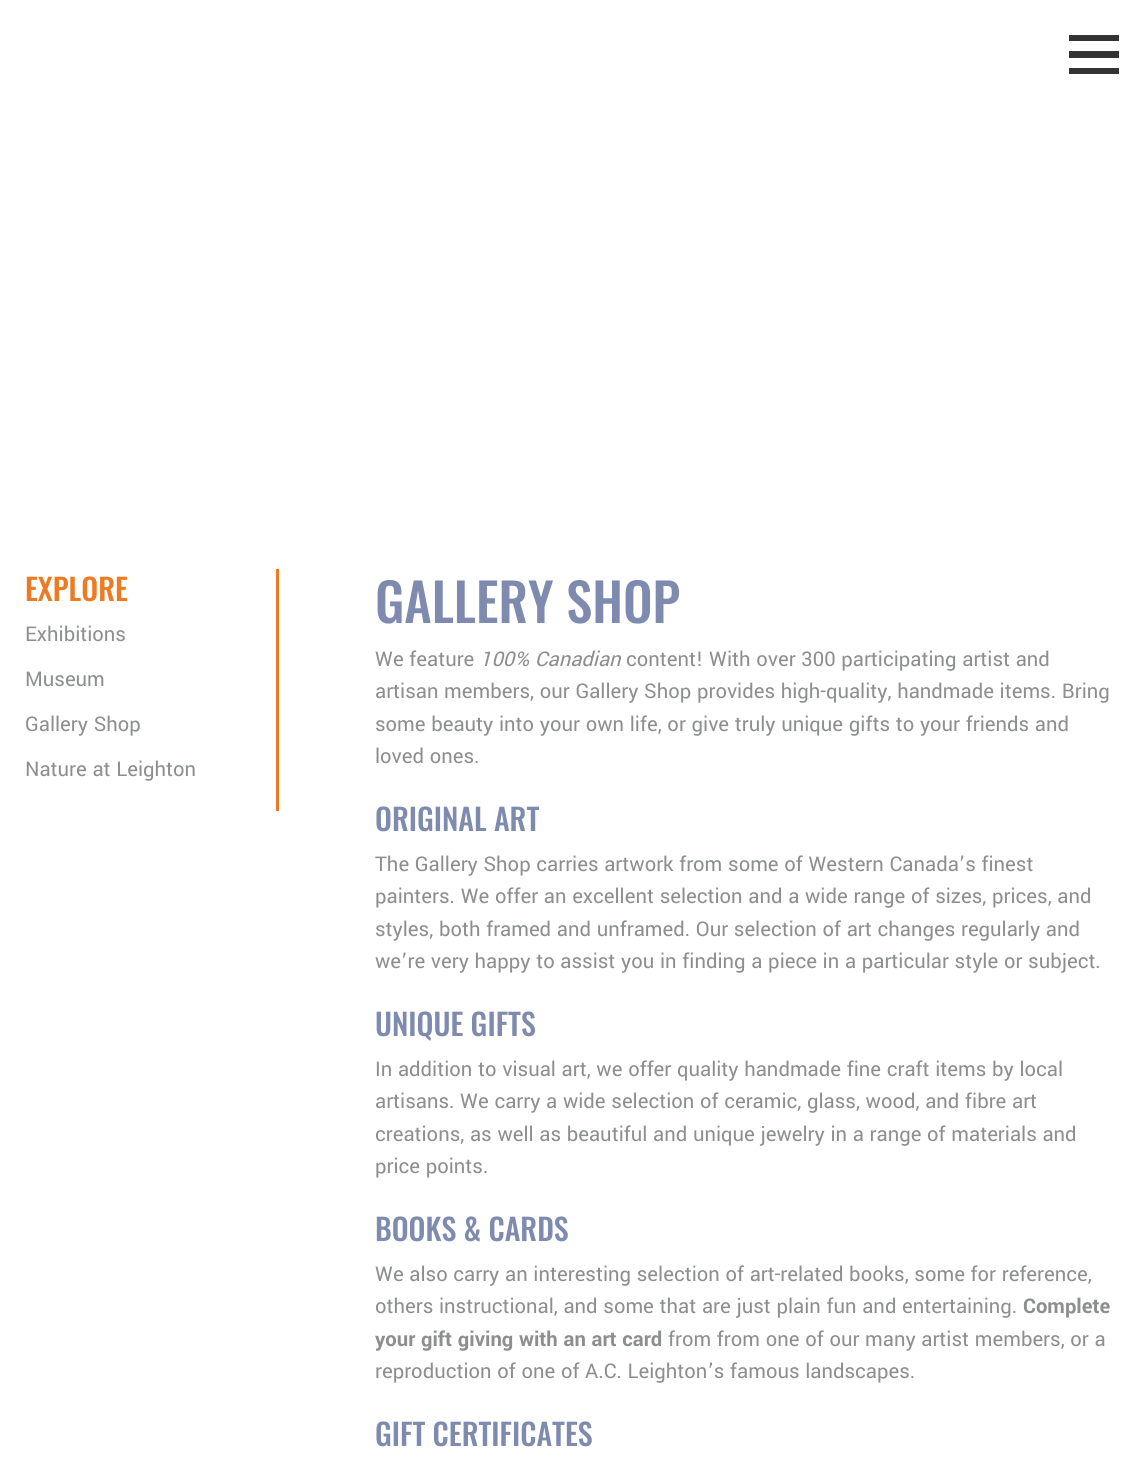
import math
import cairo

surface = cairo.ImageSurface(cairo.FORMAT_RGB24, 1143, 1479)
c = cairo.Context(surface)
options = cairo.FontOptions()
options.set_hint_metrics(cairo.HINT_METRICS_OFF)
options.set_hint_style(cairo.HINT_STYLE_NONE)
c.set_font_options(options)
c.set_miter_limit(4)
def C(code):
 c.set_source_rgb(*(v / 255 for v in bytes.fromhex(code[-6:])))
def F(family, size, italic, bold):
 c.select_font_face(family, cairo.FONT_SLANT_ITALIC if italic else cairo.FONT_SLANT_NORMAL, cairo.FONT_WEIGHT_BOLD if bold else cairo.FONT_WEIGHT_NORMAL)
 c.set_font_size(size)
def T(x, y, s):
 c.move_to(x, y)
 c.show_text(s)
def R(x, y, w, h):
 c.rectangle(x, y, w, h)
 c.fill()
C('ffffff')
c.paint()
C('333333')
R(1069,35,50,6)
R(1069,51,50,7)
R(1069,68,50,6)
C('ed7b23')
R(276,569,3,242)
F('Oswald Medium',30,0,0)
T(25,601,'EXPLORE')
F('Yantramanav',22.5,0,0)
C('8c8f8f')
T(25,641,'Exhibitions')
T(25,686,'Museum')
T(25,731,'Gallery Shop')
T(25,776,'Nature at Leighton')
F('Oswald Medium',52.5,0,0)
C('7e8baf')
T(375,623,'GALLERY SHOP')
F('Yantramanav',22.5,0,0)
C('8c8f8f')
T(375,666,'We feature')
F('Yantramanav',22.5,1,0)
T(480,666,'100% Canadian')
F('Yantramanav',22.5,0,0)
T(626,666,'content! With over 300 participating artist and')
T(375,698,'artisan members, our Gallery Shop provides high-quality, handmade items. Bring')
T(375,731,'some beauty into your own life, or give truly unique gifts to your friends and')
T(375,763,'loved ones.')
F('Oswald Medium',30,0,0)
C('7e8baf')
T(375,831,'ORIGINAL ART')
F('Yantramanav',22.5,0,0)
C('8c8f8f')
T(375,871,'The Gallery Shop carries artwork from some of Western Canada’s finest')
T(375,903,'painters. We offer an excellent selection and a wide range of sizes, prices, and')
T(375,936,'styles, both framed and unframed. Our selection of art changes regularly and')
T(375,968,'we’re very happy to assist you in finding a piece in a particular style or subject.')
F('Oswald Medium',30,0,0)
C('7e8baf')
T(375,1036,'UNIQUE GIFTS')
F('Yantramanav',22.5,0,0)
C('8c8f8f')
T(375,1076,'In addition to visual art, we offer quality handmade fine craft items by local')
T(375,1108,'artisans. We carry a wide selection of ceramic, glass, wood, and fibre art')
T(375,1141,'creations, as well as beautiful and unique jewelry in a range of materials and')
T(375,1173,'price points.')
F('Oswald Medium',30,0,0)
C('7e8baf')
T(375,1241,'BOOKS & CARDS')
F('Yantramanav',22.5,0,0)
C('8c8f8f')
T(375,1281,'We also carry an interesting selection of art-related books, some for reference,')
T(375,1313,'others instructional, and some that are just plain fun and entertaining.')
F('Yantramanav',22.5,0,1)
T(1023,1313,'Complete')
T(375,1346,'your gift giving with an art card')
F('Yantramanav',22.5,0,0)
T(668,1346,'from from one of our many artist members, or a')
T(375,1378,'reproduction of one of A.C. Leighton’s famous landscapes.')
F('Oswald Medium',30,0,0)
C('7e8baf')
T(375,1446,'GIFT CERTIFICATES')
surface.write_to_png('o.png')
